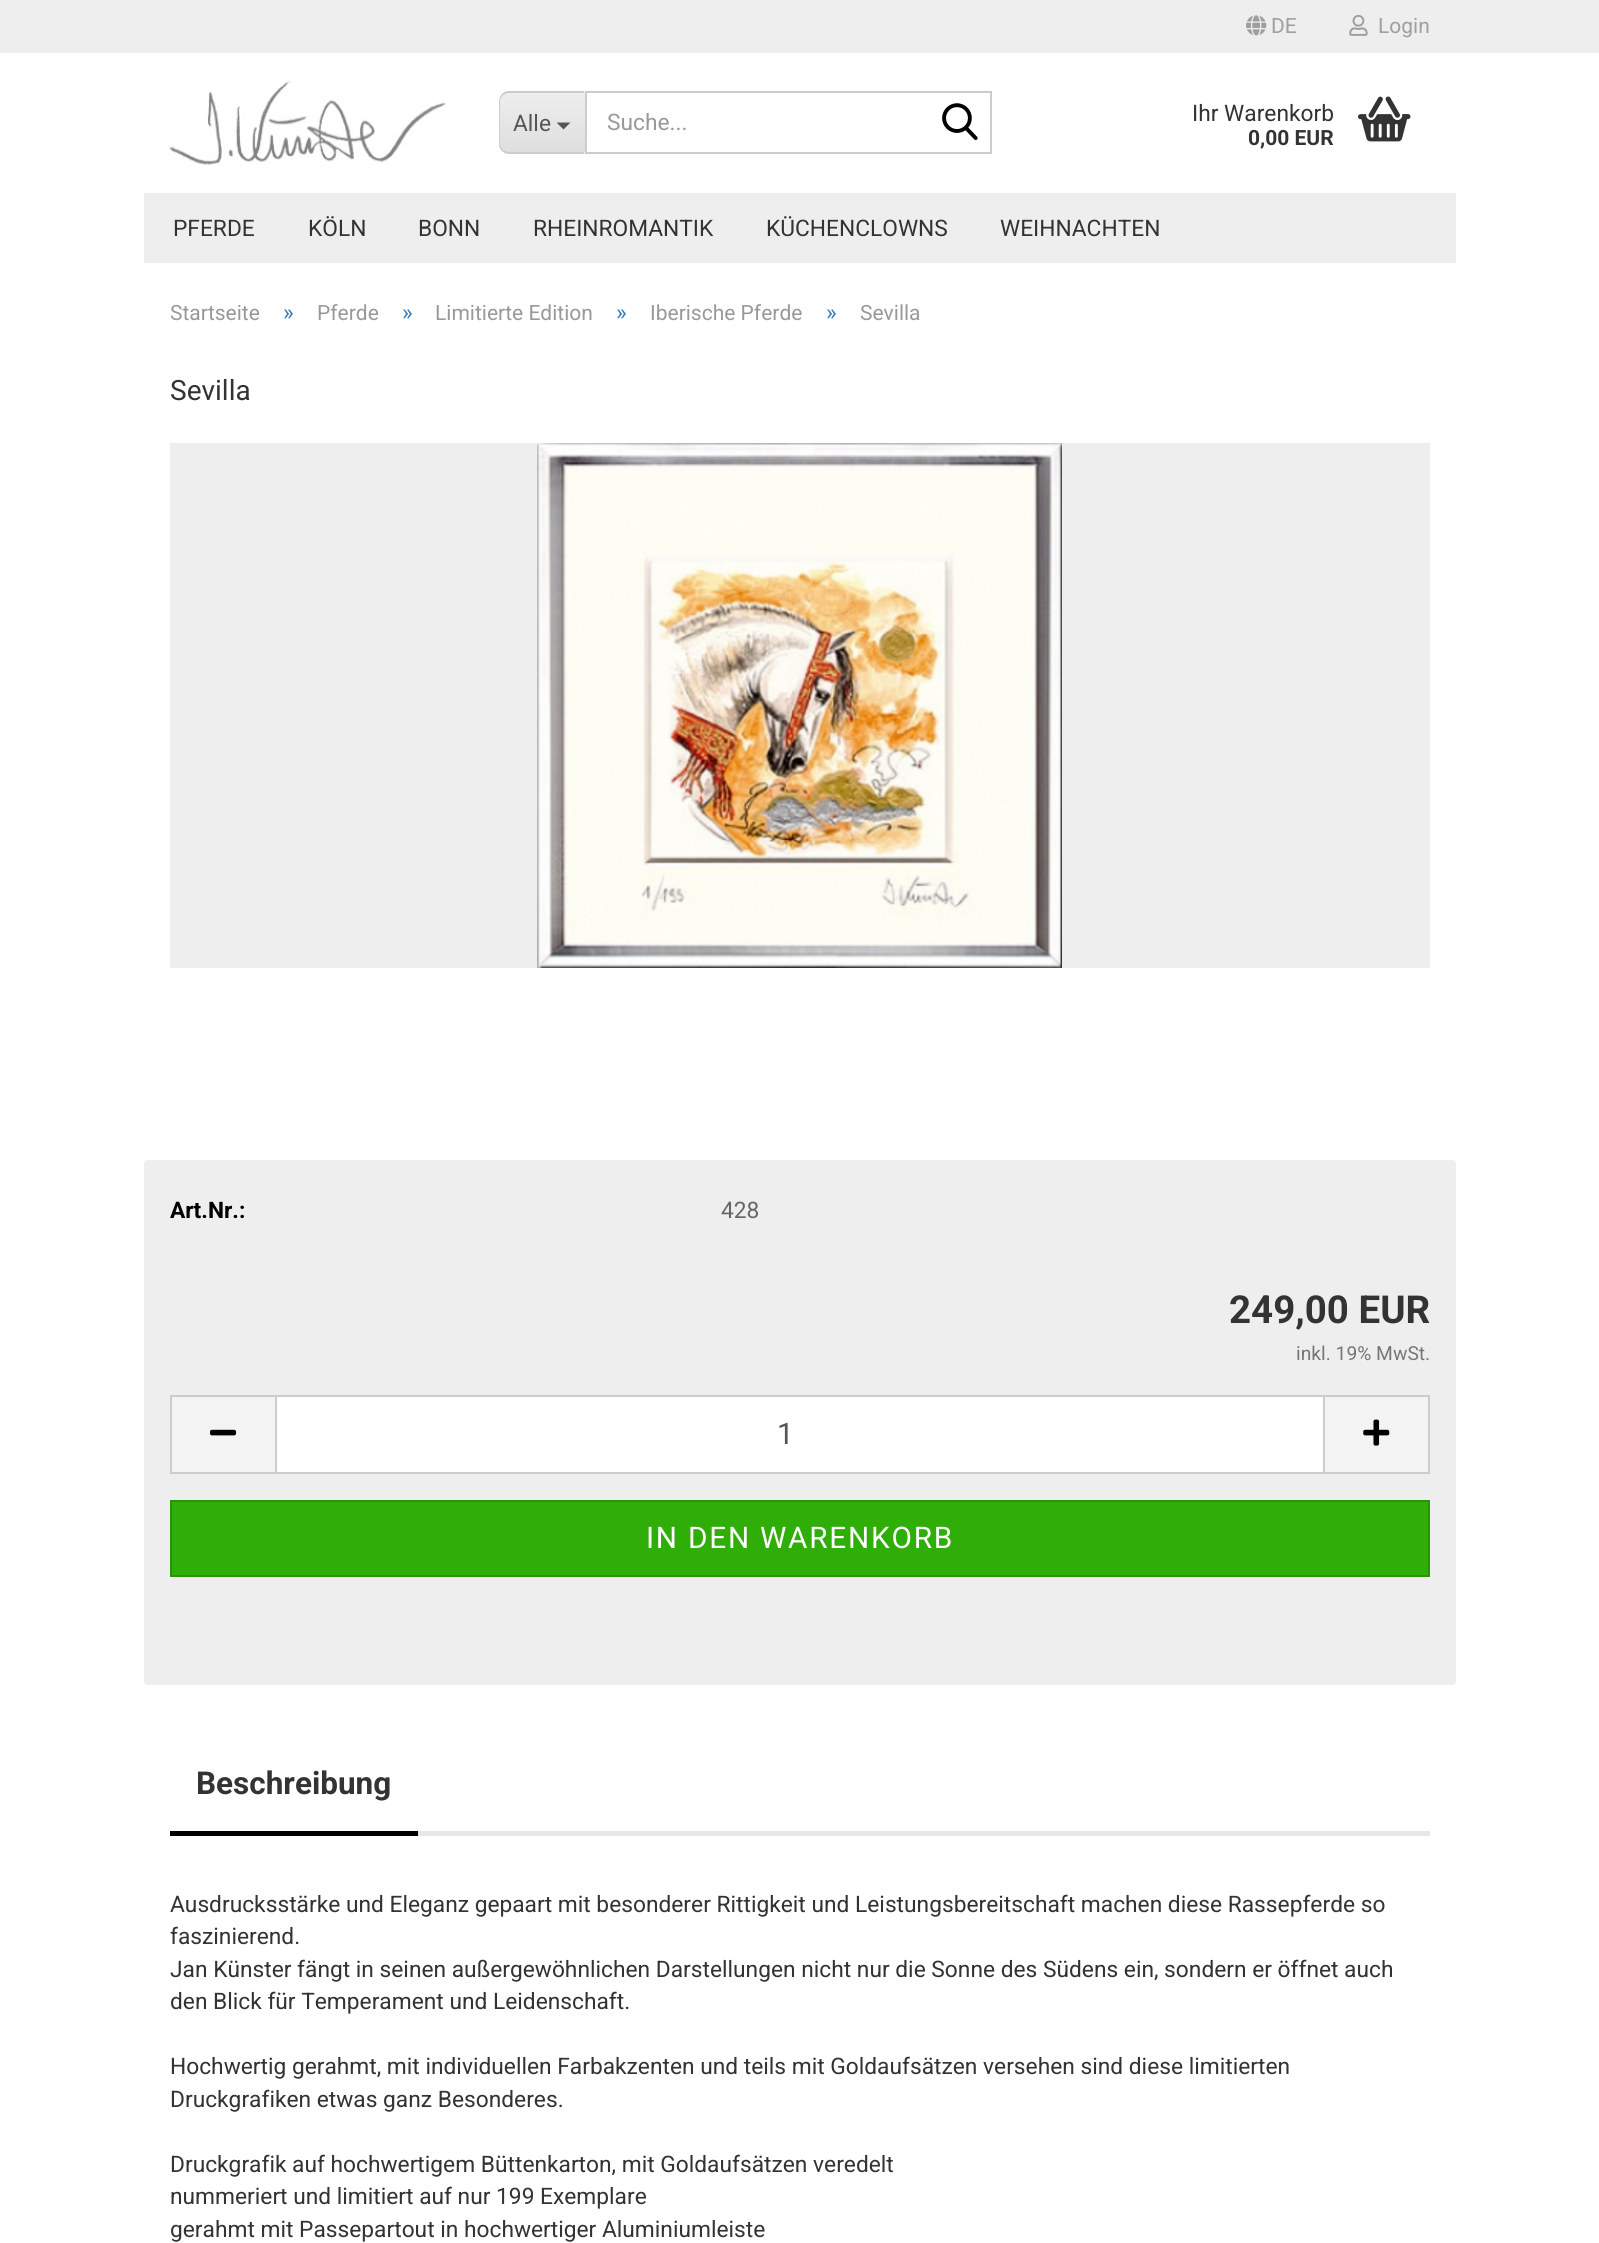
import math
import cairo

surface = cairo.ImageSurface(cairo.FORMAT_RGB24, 1599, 2243)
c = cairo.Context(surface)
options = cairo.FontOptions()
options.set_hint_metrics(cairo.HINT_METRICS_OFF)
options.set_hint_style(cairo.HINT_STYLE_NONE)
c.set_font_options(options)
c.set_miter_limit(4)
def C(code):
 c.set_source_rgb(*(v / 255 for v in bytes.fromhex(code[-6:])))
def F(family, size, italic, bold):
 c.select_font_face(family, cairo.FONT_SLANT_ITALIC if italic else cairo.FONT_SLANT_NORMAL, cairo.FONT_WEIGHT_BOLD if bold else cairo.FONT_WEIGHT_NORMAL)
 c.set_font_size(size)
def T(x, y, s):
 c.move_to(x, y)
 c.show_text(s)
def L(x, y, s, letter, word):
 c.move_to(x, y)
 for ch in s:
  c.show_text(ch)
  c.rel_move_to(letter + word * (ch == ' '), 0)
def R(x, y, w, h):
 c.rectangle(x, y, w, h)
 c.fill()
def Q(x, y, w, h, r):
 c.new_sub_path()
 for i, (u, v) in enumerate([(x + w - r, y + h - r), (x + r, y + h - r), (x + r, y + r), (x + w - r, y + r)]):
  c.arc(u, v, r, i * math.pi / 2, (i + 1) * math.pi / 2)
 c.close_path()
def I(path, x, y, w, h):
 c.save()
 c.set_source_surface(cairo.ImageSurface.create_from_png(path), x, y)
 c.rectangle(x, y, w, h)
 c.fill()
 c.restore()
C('ffffff')
c.paint()
C('eeeeee')
R(0,0,1599,53)
I('1.png',1246,15,21,21)
F('Roboto',21,0,0)
C('9f9f9f')
T(1271,33,'DE')
I('2.png',1349,14,19,22)
T(1378,33,'Login')
I('3.png',169,80,277,85)
C('f3f3f3')
c.new_path()
c.move_to(510,91)
c.line_to(585,91)
c.line_to(585,154)
c.line_to(510,154)
c.curve_to(504,154,499,149,499,143)
c.line_to(499,102)
c.curve_to(499,96,504,91,510,91)
c.close_path()
c.fill()
c.save()
c.new_path()
c.move_to(510,91)
c.line_to(585,91)
c.line_to(585,154)
c.line_to(510,154)
c.curve_to(504,154,499,149,499,143)
c.line_to(499,102)
c.curve_to(499,96,504,91,510,91)
c.close_path()
c.clip()
gradient = cairo.LinearGradient(543,93,543,152)
gradient.add_color_stop_rgba(0,0.933,0.933,0.933,1)
gradient.add_color_stop_rgba(1,0.871,0.871,0.871,1)
c.set_source(gradient)
R(499,93,86,59)
c.restore()
C('cccccc')
c.set_fill_rule(cairo.FILL_RULE_EVEN_ODD)
c.new_path()
c.move_to(509,91)
c.line_to(584,91)
c.line_to(584,154)
c.line_to(509,154)
c.curve_to(503,154,499,149,499,144)
c.line_to(499,102)
c.curve_to(499,96,503,91,509,91)
c.close_path()
c.move_to(509,93)
c.line_to(584,93)
c.line_to(584,152)
c.line_to(509,152)
c.curve_to(504,152,500,148,500,144)
c.line_to(500,102)
c.curve_to(500,97,504,93,509,93)
c.close_path()
c.fill()
F('Roboto',22.75,0,0)
C('555555')
T(513,131,'Alle')
c.set_fill_rule(cairo.FILL_RULE_WINDING)
c.new_path()
c.move_to(556.5,122.5)
c.line_to(570.5,122.5)
c.line_to(563.5,129.5)
c.close_path()
c.fill()
c.rectangle(586,92,405,61)
C('cccccc')
c.stroke()
C('999999')
T(607,130,'Suche...')
I('4.png',942,103,36,37)
C('333333')
T(1192,121,'Ihr Warenkorb')
F('Roboto',21,0,1)
T(1248,145,'0,00 EUR')
I('5.png',1358,96,53,46)
C('eeeeee')
R(144,193,1312,70)
F('Roboto',22.75,0,0)
C('333333')
T(173,236,'PFERDE')
T(308,236,'KÖLN')
T(418,236,'BONN')
T(533,236,'RHEINROMANTIK')
T(766,236,'KÜCHENCLOWNS')
T(1000,236,'WEIHNACHTEN')
F('Roboto',21,0,0)
C('999999')
T(170,320,'Startseite')
F('Roboto',22.75,0,0)
C('337ab7')
T(283,320,'»')
F('Roboto',21,0,0)
C('999999')
T(317,320,'Pferde')
F('Roboto',22.75,0,0)
C('337ab7')
T(402,320,'»')
F('Roboto',21,0,0)
C('999999')
T(435,320,'Limitierte Edition')
F('Roboto',22.75,0,0)
C('337ab7')
T(616,320,'»')
F('Roboto',21,0,0)
C('999999')
T(650,320,'Iberische Pferde')
F('Roboto',22.75,0,0)
C('337ab7')
T(826,320,'»')
F('Roboto',21,0,0)
C('999999')
T(860,320,'Sevilla')
F('Roboto',28,0,0)
C('333333')
T(170,400,'Sevilla')
C('eeeeee')
R(170,443,1260,525)
I('6.png',537,443,525,525)
Q(144,1160,1312,525,4)
c.fill()
F('Roboto',22.75,0,1)
C('000000')
T(170,1218,'Art.Nr.:')
F('Roboto',22.75,0,0)
C('666666')
T(721,1218,'428')
F('Roboto',38.5,0,1)
C('333333')
T(1229,1323,'249,00 EUR')
F('Roboto',19.25,0,0)
C('777777')
T(1296,1360,'inkl. 19% MwSt.')
C('f3f3f3')
R(172,1397,103,75)
C('cccccc')
R(170,1395,105,2)
R(170,1472,105,2)
R(170,1395,2,79)
I('7.png',210,1429,27,7)
C('ffffff')
c.rectangle(276,1396,1048,77)
c.fill_preserve()
C('cccccc')
c.stroke()
F('Roboto',29.75,0,0)
C('555555')
T(777,1444,'1')
C('f3f3f3')
R(1325,1397,103,75)
C('cccccc')
R(1325,1395,105,2)
R(1428,1395,2,79)
R(1325,1472,105,2)
I('8.png',1363,1419,27,27)
C('2eae06')
c.rectangle(171,1501,1258,75)
c.fill_preserve()
C('279505')
c.stroke()
C('ffffff')
L(646,1548,'IN DEN WARENKORB',1.75,0)
C('e7e7e7')
R(418,1831,1012,5)
C('000000')
R(170,1831,248,5)
F('Roboto',31.5,0,1)
C('333333')
T(196,1794,'Beschreibung')
F('Roboto',22.75,0,0)
T(170,1912,'Ausdrucksstärke und Eleganz gepaart mit besonderer Rittigkeit und Leistungsbereitschaft machen diese Rassepferde so')
T(170,1944,'faszinierend.')
T(170,1977,'Jan Künster fängt in seinen außergewöhnlichen Darstellungen nicht nur die Sonne des Südens ein, sondern er öffnet auch')
T(170,2009,'den Blick für Temperament und Leidenschaft.')
T(170,2074,'Hochwertig gerahmt, mit individuellen Farbakzenten und teils mit Goldaufsätzen versehen sind diese limitierten')
T(170,2107,'Druckgrafiken etwas ganz Besonderes.')
T(170,2172,'Druckgrafik auf hochwertigem Büttenkarton, mit Goldaufsätzen veredelt')
T(170,2204,'nummeriert und limitiert auf nur 199 Exemplare')
T(170,2237,'gerahmt mit Passepartout in hochwertiger Aluminiumleiste')
surface.write_to_png('o.png')
